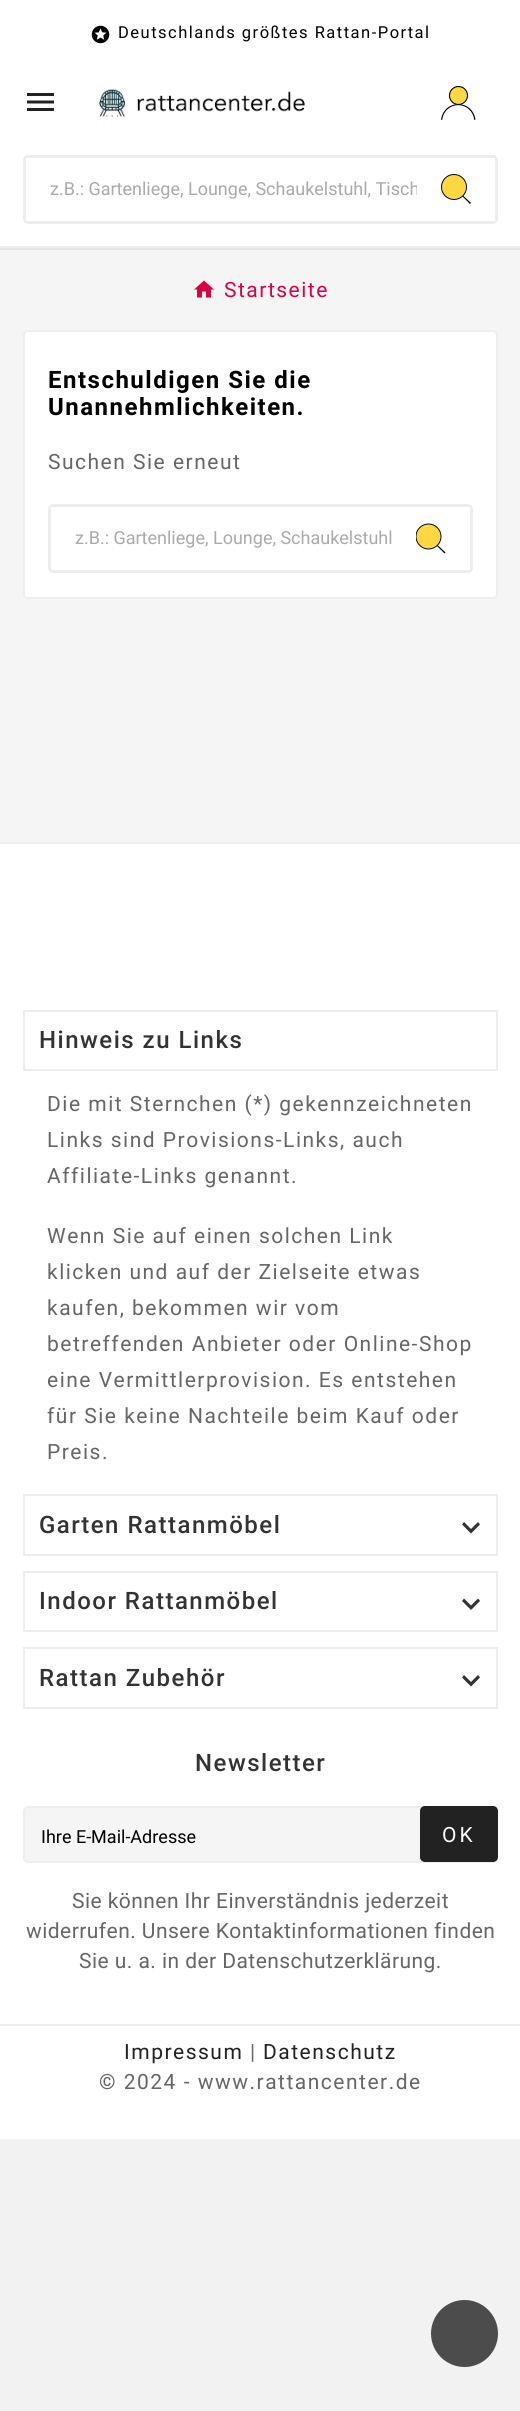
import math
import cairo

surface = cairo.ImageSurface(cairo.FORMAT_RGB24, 520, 2411)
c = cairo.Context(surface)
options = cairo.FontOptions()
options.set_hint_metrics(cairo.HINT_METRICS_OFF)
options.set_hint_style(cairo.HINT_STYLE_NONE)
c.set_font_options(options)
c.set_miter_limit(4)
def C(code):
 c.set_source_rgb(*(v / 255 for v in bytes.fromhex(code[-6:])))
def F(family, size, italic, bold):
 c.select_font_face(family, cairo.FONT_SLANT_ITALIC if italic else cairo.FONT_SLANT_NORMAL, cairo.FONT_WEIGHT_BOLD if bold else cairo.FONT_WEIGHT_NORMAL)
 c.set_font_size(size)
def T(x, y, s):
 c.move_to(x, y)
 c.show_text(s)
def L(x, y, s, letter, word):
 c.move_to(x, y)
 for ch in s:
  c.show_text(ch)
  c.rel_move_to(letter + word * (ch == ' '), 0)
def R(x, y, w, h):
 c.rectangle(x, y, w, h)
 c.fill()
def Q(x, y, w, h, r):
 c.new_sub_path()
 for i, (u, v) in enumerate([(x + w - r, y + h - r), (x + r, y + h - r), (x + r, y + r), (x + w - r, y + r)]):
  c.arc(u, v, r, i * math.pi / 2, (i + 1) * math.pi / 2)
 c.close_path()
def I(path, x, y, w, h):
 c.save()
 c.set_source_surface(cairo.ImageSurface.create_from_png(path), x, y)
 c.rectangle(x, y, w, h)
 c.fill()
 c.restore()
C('f2f2f2')
c.paint()
C('f5f5f5')
R(0,250,520,592)
C('ffffff')
R(0,0,520,246)
C('e5e5e5')
R(0,248,520,2)
C('ededed')
R(0,246,520,2)
I('1.png',91,25,19,19)
F('Roboto',16.5,0,0)
C('000000')
L(118,38,'Deutschlands größtes Rattan-Portal',1.5,0)
I('2.png',27,93,27,18)
I('3.png',99,89,206,28)
I('4.png',441,86,35,34)
Q(24.5,156.5,472,66,3.5)
C('ededed')
c.set_line_width(3)
c.stroke()
C('ffffff')
R(26,158,1,63)
F('Roboto',18,0,0)
C('aaaaaa')
T(50,195,'z.B.: Gartenliege, Lounge, Schaukelstuhl, Tisch')
C('ffffff')
R(417,158,78,63)
C('000000')
c.new_path()
c.move_to(470,204)
c.line_to(462.5,196.5)
c.line_to(463,195.5)
c.line_to(471,203)
c.close_path()
c.fill()
C('ffd741')
c.arc(454,187,12,0,2 * math.pi)
c.fill()
c.arc(454,187,12.5,0,2 * math.pi)
C('000000')
c.set_line_width(1)
c.stroke()
I('5.png',194,280,20,18)
F('Roboto',21,0,0)
C('d90244')
L(224,297,'Startseite',1.5,0)
C('ffffff')
Q(23,330,475,269,5)
c.fill()
Q(24,331,473,267,4)
c.set_source_rgba(0,0,0,0.07)
c.set_line_width(2)
c.stroke()
F('Roboto',24,0,1)
C('000000')
L(48,388,'Entschuldigen Sie die',1.5,0)
L(48,415,'Unannehmlichkeiten.',1.5,0)
F('Roboto',21,0,0)
C('666666')
L(48,469,'Suchen Sie erneut',1.5,0)
Q(49.5,505.5,422,66,3.5)
C('ededed')
c.set_line_width(3)
c.stroke()
C('ffffff')
R(51,507,1,63)
F('Roboto',18,0,0)
C('aaaaaa')
T(75,544,'z.B.: Gartenliege, Lounge, Schaukelstuhl')
C('ffffff')
R(469,507,1,63)
C('000000')
c.new_path()
c.move_to(444.5,553.5)
c.line_to(437,546)
c.line_to(437.5,545)
c.line_to(445.5,552.5)
c.close_path()
c.fill()
C('ffd741')
c.arc(428.5,536.5,12,0,2 * math.pi)
c.fill()
c.save()
c.rectangle(416,522,30,33)
c.clip()
c.arc(428.5,536.5,12.5,0,2 * math.pi)
C('000000')
c.set_line_width(1)
c.stroke()
c.restore()
C('ffffff')
R(0,844,520,1295)
C('ededed')
R(0,842,520,2)
c.rectangle(24,1011,473,59)
c.set_line_width(2)
c.stroke()
F('Roboto Medium',24,0,0)
C('333333')
L(39,1048,'Hinweis zu Links',1.5,0)
F('Roboto',21,0,0)
C('666666')
L(47,1111,'Die mit Sternchen (*) gekennzeichneten',1.5,0)
L(47,1147,'Links sind Provisions-Links, auch',1.5,0)
L(47,1183,'Affiliate-Links genannt.',1.5,0)
L(47,1243,'Wenn Sie auf einen solchen Link',1.5,0)
L(47,1279,'klicken und auf der Zielseite etwas',1.5,0)
L(47,1315,'kaufen, bekommen wir vom',1.5,0)
L(47,1351,'betreffenden Anbieter oder Online-Shop',1.5,0)
L(47,1387,'eine Vermittlerprovision. Es entstehen',1.5,0)
L(47,1423,'für Sie keine Nachteile beim Kauf oder',1.5,0)
L(47,1459,'Preis.',1.5,0)
c.rectangle(24,1495,473,60)
C('ededed')
c.stroke()
F('Roboto Medium',24,0,0)
C('333333')
L(39,1533,'Garten Rattanmöbel',1.5,0)
c.new_path()
c.move_to(464,1522)
c.line_to(471,1529)
c.line_to(478,1522)
c.line_to(480,1524.5)
c.line_to(471,1533.5)
c.line_to(462,1524.5)
c.close_path()
c.fill()
c.rectangle(24,1572,473,59)
C('ededed')
c.stroke()
C('333333')
L(39,1609,'Indoor Rattanmöbel',1.5,0)
c.new_path()
c.move_to(464,1598.5)
c.line_to(471,1605.5)
c.line_to(478,1598.5)
c.line_to(480,1601)
c.line_to(471,1610)
c.line_to(462,1601)
c.close_path()
c.fill()
c.rectangle(24,1648,473,60)
C('ededed')
c.stroke()
C('333333')
L(39,1686,'Rattan Zubehör',1.5,0)
c.new_path()
c.move_to(464,1675)
c.line_to(471,1682)
c.line_to(478,1675)
c.line_to(480,1677.5)
c.line_to(471,1686.5)
c.line_to(462,1677.5)
c.close_path()
c.fill()
L(195,1771,'Newsletter',1.5,0)
C('f5f5f5')
Q(24,1807,473,55,4)
c.fill_preserve()
C('eeeeee')
c.stroke()
F('Roboto',18,0,0)
C('000000')
T(41,1843,'Ihre E-Mail-Adresse')
C('222222')
Q(420,1806,78,56,5)
c.fill()
F('Roboto',21,0,0)
C('ffffff')
L(442,1842,'OK',3,0)
C('666666')
L(72,1908,'Sie können Ihr Einverständnis jederzeit',.45,0)
L(26,1938,'widerrufen. Unsere Kontaktinformationen finden',.45,0)
L(79,1968,'Sie u. a. in der Datenschutzerklärung.',.45,0)
C('4c4c4c')
c.new_path()
c.arc(464.5,2333.5,33.5,0,2 * math.pi)
c.fill()
C('ededed')
R(0,2024,520,2)
C('222222')
L(124,2059,'Impressum',1.5,0)
C('666666')
L(250,2059,'|',1.5,0)
C('222222')
L(263,2059,'Datenschutz',1.5,0)
C('666666')
L(99,2089,'© 2024 - www.rattancenter.de',1.5,0)
surface.write_to_png('o.png')
